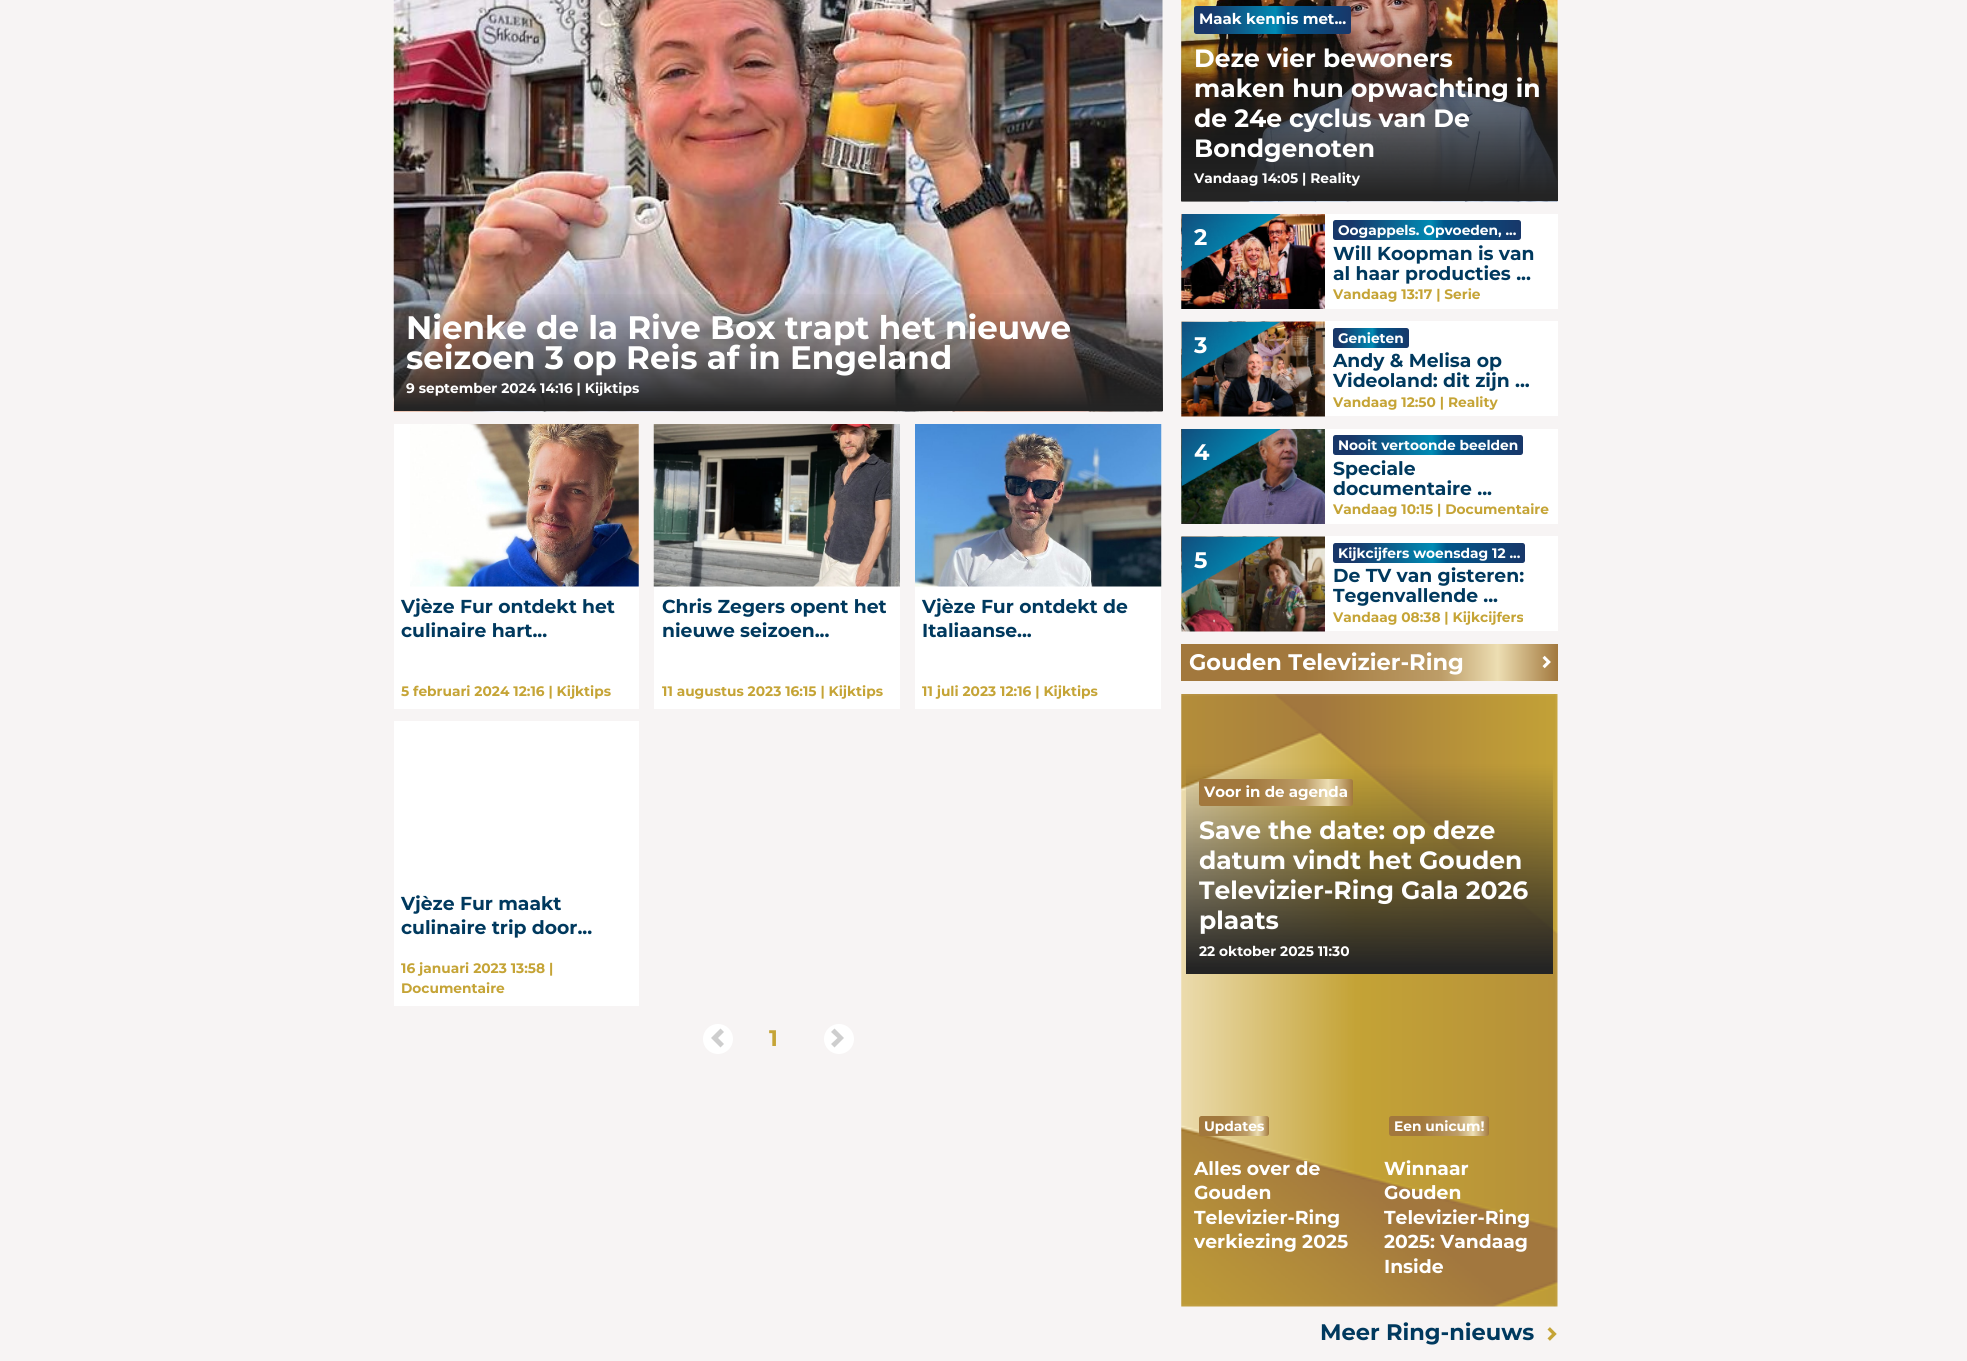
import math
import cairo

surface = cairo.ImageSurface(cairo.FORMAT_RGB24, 1967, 1361)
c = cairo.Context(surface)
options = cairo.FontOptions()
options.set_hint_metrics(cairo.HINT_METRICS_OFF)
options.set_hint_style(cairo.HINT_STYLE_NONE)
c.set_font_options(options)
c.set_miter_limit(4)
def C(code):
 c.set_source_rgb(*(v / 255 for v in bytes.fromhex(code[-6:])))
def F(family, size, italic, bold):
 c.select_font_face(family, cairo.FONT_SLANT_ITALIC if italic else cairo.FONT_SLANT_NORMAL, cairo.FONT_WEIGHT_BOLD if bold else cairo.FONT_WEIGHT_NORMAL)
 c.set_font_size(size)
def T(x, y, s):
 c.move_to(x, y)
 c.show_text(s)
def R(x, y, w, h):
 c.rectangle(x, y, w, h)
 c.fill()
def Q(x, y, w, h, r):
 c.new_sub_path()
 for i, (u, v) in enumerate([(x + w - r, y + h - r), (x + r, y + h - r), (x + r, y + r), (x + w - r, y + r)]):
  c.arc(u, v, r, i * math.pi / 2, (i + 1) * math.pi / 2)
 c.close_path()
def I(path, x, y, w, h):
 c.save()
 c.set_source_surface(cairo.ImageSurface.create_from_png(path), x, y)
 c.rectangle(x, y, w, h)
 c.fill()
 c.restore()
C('f7f4f4')
c.paint()
I('1.png',393,0,770,412)
gradient = cairo.LinearGradient(778,291,778,411)
gradient.add_color_stop_rgba(0,0.141,0.141,0.141,0)
gradient.add_color_stop_rgba(.97,0.141,0.141,0.141,1)
c.set_source(gradient)
R(394,294,769,117)
F('Montserrat',32.5,0,1)
C('ffffff')
T(406,339,'Nienke de la Rive Box trapt het nieuwe')
T(406,369,'seizoen 3 op Reis af in Engeland')
F('Montserrat',13.75,0,1)
T(406,393,'9 september 2024 14:16 | Kijktips')
R(394,424,245,285)
I('2.png',410,424,229,163)
F('Montserrat',18.75,0,1)
C('00395e')
T(401,613,'Vjèze Fur ontdekt het')
T(401,637,'culinaire hart...')
F('Montserrat',13.75,0,1)
C('c5a436')
T(401,696,'5 februari 2024 12:16 | Kijktips')
C('ffffff')
R(654,586,246,123)
I('3.png',653,424,247,163)
F('Montserrat',18.75,0,1)
C('00395e')
T(662,613,'Chris Zegers opent het')
T(662,637,'nieuwe seizoen...')
F('Montserrat',13.75,0,1)
C('c5a436')
T(662,696,'11 augustus 2023 16:15 | Kijktips')
C('ffffff')
R(915,586,246,123)
I('4.png',915,424,247,163)
F('Montserrat',18.75,0,1)
C('00395e')
T(922,613,'Vjèze Fur ontdekt de')
T(922,637,'Italiaanse...')
F('Montserrat',13.75,0,1)
C('c5a436')
T(922,696,'11 juli 2023 12:16 | Kijktips')
C('ffffff')
R(394,721,245,285)
F('Montserrat',18.75,0,1)
C('00395e')
T(401,910,'Vjèze Fur maakt')
T(401,934,'culinaire trip door...')
F('Montserrat',13.75,0,1)
C('c5a436')
T(401,973,'16 januari 2023 13:58 |')
T(401,993,'Documentaire')
C('ffffff')
c.new_path()
c.arc(718,1039,15,0,2 * math.pi)
c.fill()
C('cecece')
c.new_path()
c.move_to(711,1038)
c.line_to(720.5,1047.5)
c.line_to(724,1044)
c.line_to(718,1038)
c.line_to(724,1032)
c.line_to(720.5,1028.5)
c.close_path()
c.fill()
F('Montserrat',22.5,0,1)
C('c5a436')
T(769,1046,'1')
C('ffffff')
c.new_path()
c.arc(839,1039,15,0,2 * math.pi)
c.fill()
C('cecece')
c.new_path()
c.move_to(844,1038)
c.line_to(834.5,1028.5)
c.line_to(831,1032)
c.line_to(837.5,1038)
c.line_to(831,1044)
c.line_to(834.5,1047.5)
c.close_path()
c.fill()
I('5.png',1181,0,377,202)
gradient = cairo.LinearGradient(1369,-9,1369,201)
gradient.add_color_stop_rgba(0,0.141,0.141,0.141,0)
gradient.add_color_stop_rgba(.97,0.141,0.141,0.141,1)
c.set_source(gradient)
R(1181,0,377,201)
gradient = cairo.LinearGradient(1194,20,1351,20)
gradient.add_color_stop_rgba(0,0.094,0.216,0.412,1)
gradient.add_color_stop_rgba(.1,0.094,0.216,0.412,1)
gradient.add_color_stop_rgba(.52,0,0.545,0.706,1)
gradient.add_color_stop_rgba(.59,0,0.341,0.549,1)
gradient.add_color_stop_rgba(1,0.094,0.216,0.412,1)
c.set_source(gradient)
Q(1194,6,157,28,2.5)
c.fill()
F('Montserrat',15,0,1)
C('ffffff')
T(1199,24,'Maak kennis met...')
F('Montserrat',25,0,1)
T(1194,67,'Deze vier bewoners')
T(1194,97,'maken hun opwachting in')
T(1194,127,'de 24e cyclus van De')
T(1194,157,'Bondgenoten')
F('Montserrat',13.75,0,1)
T(1194,183,'Vandaag 14:05 | Reality')
R(1181,214,377,95)
I('6.png',1181,214,144,95)
I('7.png',1181,214,100,57)
F('Montserrat',22.5,0,1)
T(1194,245,'2')
gradient = cairo.LinearGradient(1333,230,1521,230)
gradient.add_color_stop_rgba(0,0.094,0.216,0.412,1)
gradient.add_color_stop_rgba(.1,0.094,0.216,0.412,1)
gradient.add_color_stop_rgba(.52,0,0.545,0.706,1)
gradient.add_color_stop_rgba(.59,0,0.341,0.549,1)
gradient.add_color_stop_rgba(1,0.094,0.216,0.412,1)
c.set_source(gradient)
Q(1333,220,188,20,2.5)
c.fill()
F('Montserrat',13.75,0,1)
C('ffffff')
T(1338,235,'Oogappels. Opvoeden, ...')
F('Montserrat',18.75,0,1)
C('00395e')
T(1333,260,'Will Koopman is van')
T(1333,280,'al haar producties ...')
F('Montserrat',13.75,0,1)
C('c5a436')
T(1333,299,'Vandaag 13:17 | Serie')
C('ffffff')
R(1181,321,377,95)
I('8.png',1181,321,144,96)
I('9.png',1181,321,100,58)
F('Montserrat',22.5,0,1)
T(1194,353,'3')
gradient = cairo.LinearGradient(1333,338,1409,338)
gradient.add_color_stop_rgba(0,0.094,0.216,0.412,1)
gradient.add_color_stop_rgba(.1,0.094,0.216,0.412,1)
gradient.add_color_stop_rgba(.52,0,0.545,0.706,1)
gradient.add_color_stop_rgba(.59,0,0.341,0.549,1)
gradient.add_color_stop_rgba(1,0.094,0.216,0.412,1)
c.set_source(gradient)
Q(1333,328,76,20,2.5)
c.fill()
F('Montserrat',13.75,0,1)
C('ffffff')
T(1338,343,'Genieten')
F('Montserrat',18.75,0,1)
C('00395e')
T(1333,367,'Andy & Melisa op')
T(1333,387,'Videoland: dit zijn ...')
F('Montserrat',13.75,0,1)
C('c5a436')
T(1333,407,'Vandaag 12:50 | Reality')
C('ffffff')
R(1181,429,377,95)
I('10.png',1181,429,144,95)
I('11.png',1181,429,100,57)
F('Montserrat',22.5,0,1)
T(1194,460,'4')
gradient = cairo.LinearGradient(1333,445,1523,445)
gradient.add_color_stop_rgba(0,0.094,0.216,0.412,1)
gradient.add_color_stop_rgba(.1,0.094,0.216,0.412,1)
gradient.add_color_stop_rgba(.52,0,0.545,0.706,1)
gradient.add_color_stop_rgba(.59,0,0.341,0.549,1)
gradient.add_color_stop_rgba(1,0.094,0.216,0.412,1)
c.set_source(gradient)
Q(1333,435,190,20,2.5)
c.fill()
F('Montserrat',13.75,0,1)
C('ffffff')
T(1338,450,'Nooit vertoonde beelden')
F('Montserrat',18.75,0,1)
C('00395e')
T(1333,475,'Speciale')
T(1333,495,'documentaire ...')
F('Montserrat',13.75,0,1)
C('c5a436')
T(1333,514,'Vandaag 10:15 | Documentaire')
C('ffffff')
R(1181,536,377,95)
I('12.png',1181,536,144,96)
I('13.png',1181,536,100,58)
F('Montserrat',22.5,0,1)
T(1194,568,'5')
gradient = cairo.LinearGradient(1333,553,1525,553)
gradient.add_color_stop_rgba(0,0.094,0.216,0.412,1)
gradient.add_color_stop_rgba(.1,0.094,0.216,0.412,1)
gradient.add_color_stop_rgba(.52,0,0.545,0.706,1)
gradient.add_color_stop_rgba(.59,0,0.341,0.549,1)
gradient.add_color_stop_rgba(1,0.094,0.216,0.412,1)
c.set_source(gradient)
Q(1333,543,192,20,2.5)
c.fill()
F('Montserrat',13.75,0,1)
C('ffffff')
T(1338,558,'Kijkcijfers woensdag 12 ...')
F('Montserrat',18.75,0,1)
C('00395e')
T(1333,582,'De TV van gisteren:')
T(1333,602,'Tegenvallende ...')
F('Montserrat',13.75,0,1)
C('c5a436')
T(1333,622,'Vandaag 08:38 | Kijkcijfers')
gradient = cairo.LinearGradient(1181,663,1558,663)
gradient.add_color_stop_rgba(0,0.635,0.471,0.239,1)
gradient.add_color_stop_rgba(.33,0.635,0.471,0.239,1)
gradient.add_color_stop_rgba(.69,0.741,0.616,0.408,1)
gradient.add_color_stop_rgba(.84,0.929,0.871,0.702,1)
gradient.add_color_stop_rgba(1,0.635,0.471,0.239,1)
c.set_source(gradient)
R(1181,644,377,37)
F('Montserrat',22.5,0,1)
C('ffffff')
T(1189,670,'Gouden Televizier-Ring')
I('14.png',1542,655,9,14)
I('15.png',1181,694,377,613)
gradient = cairo.LinearGradient(1199,793,1353,793)
gradient.add_color_stop_rgba(0,0.635,0.471,0.239,1)
gradient.add_color_stop_rgba(.33,0.635,0.471,0.239,1)
gradient.add_color_stop_rgba(.69,0.741,0.616,0.408,1)
gradient.add_color_stop_rgba(.84,0.929,0.871,0.702,1)
gradient.add_color_stop_rgba(1,0.635,0.471,0.239,1)
c.set_source(gradient)
Q(1199,779,154,27,2.5)
c.fill()
F('Montserrat',15,0,1)
C('ffffff')
T(1204,797,'Voor in de agenda')
F('Montserrat',25,0,1)
T(1199,839,'Save the date: op deze')
T(1199,869,'datum vindt het Gouden')
T(1199,899,'Televizier-Ring Gala 2026')
T(1199,929,'plaats')
F('Montserrat',13.75,0,1)
T(1199,956,'22 oktober 2025 11:30')
gradient = cairo.LinearGradient(1199,1126,1269,1126)
gradient.add_color_stop_rgba(0,0.635,0.471,0.239,1)
gradient.add_color_stop_rgba(.33,0.635,0.471,0.239,1)
gradient.add_color_stop_rgba(.69,0.741,0.616,0.408,1)
gradient.add_color_stop_rgba(.84,0.929,0.871,0.702,1)
gradient.add_color_stop_rgba(1,0.635,0.471,0.239,1)
c.set_source(gradient)
Q(1199,1116,70,20,2.5)
c.fill()
C('ffffff')
T(1204,1131,'Updates')
F('Montserrat',18.75,0,1)
T(1194,1175,'Alles over de')
T(1194,1199,'Gouden')
T(1194,1224,'Televizier-Ring')
T(1194,1248,'verkiezing 2025')
gradient = cairo.LinearGradient(1389,1126,1489,1126)
gradient.add_color_stop_rgba(0,0.635,0.471,0.239,1)
gradient.add_color_stop_rgba(.33,0.635,0.471,0.239,1)
gradient.add_color_stop_rgba(.69,0.741,0.616,0.408,1)
gradient.add_color_stop_rgba(.84,0.929,0.871,0.702,1)
gradient.add_color_stop_rgba(1,0.635,0.471,0.239,1)
c.set_source(gradient)
Q(1389,1116,100,20,2.5)
c.fill()
F('Montserrat',13.75,0,1)
C('ffffff')
T(1394,1131,'Een unicum!')
F('Montserrat',18.75,0,1)
T(1384,1175,'Winnaar')
T(1384,1199,'Gouden')
T(1384,1224,'Televizier-Ring')
T(1384,1248,'2025: Vandaag')
T(1384,1273,'Inside')
F('Montserrat',22.5,0,1)
C('00395e')
T(1320,1340,'Meer Ring-nieuws')
I('16.png',1547,1327,10,14)
surface.write_to_png('o.png')
